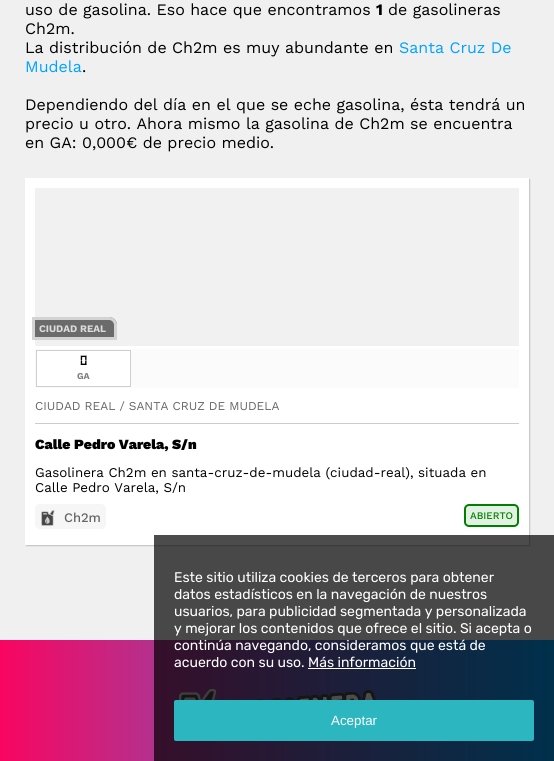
import math
import cairo

surface = cairo.ImageSurface(cairo.FORMAT_RGB24, 554, 761)
c = cairo.Context(surface)
options = cairo.FontOptions()
options.set_hint_metrics(cairo.HINT_METRICS_OFF)
options.set_hint_style(cairo.HINT_STYLE_NONE)
c.set_font_options(options)
c.set_miter_limit(4)
def C(code):
 c.set_source_rgb(*(v / 255 for v in bytes.fromhex(code[-6:])))
def F(family, size, italic, bold):
 c.select_font_face(family, cairo.FONT_SLANT_ITALIC if italic else cairo.FONT_SLANT_NORMAL, cairo.FONT_WEIGHT_BOLD if bold else cairo.FONT_WEIGHT_NORMAL)
 c.set_font_size(size)
def T(x, y, s):
 c.move_to(x, y)
 c.show_text(s)
def R(x, y, w, h):
 c.rectangle(x, y, w, h)
 c.fill()
def Q(x, y, w, h, r):
 c.new_sub_path()
 for i, (u, v) in enumerate([(x + w - r, y + h - r), (x + r, y + h - r), (x + r, y + r), (x + w - r, y + r)]):
  c.arc(u, v, r, i * math.pi / 2, (i + 1) * math.pi / 2)
 c.close_path()
def S(x, y, w, h, r, blur, alpha):
 c.push_group_with_content(cairo.CONTENT_ALPHA)
 c.set_operator(cairo.OPERATOR_SOURCE)
 for i in range(15, -16, -2):
  e = blur * i / 6
  if min(w, h) + 2 * e > 0:
   c.set_source_rgba(0, 0, 0, alpha * math.erfc((i - 1) / 8.5) / 2)
   Q(x - e, y - e, w + 2 * e, h + 2 * e, max(0, min(r + e + blur * .6, min(w, h) / 2 + e)))
   c.fill()
 c.mask(c.pop_group())
def I(path, x, y, w, h):
 c.save()
 c.set_source_surface(cairo.ImageSurface.create_from_png(path), x, y)
 c.rectangle(x, y, w, h)
 c.fill()
 c.restore()
C('f0f0f0')
c.paint()
F('Work Sans',16,0,0)
C('000000')
T(25,15,'uso de gasolina. Eso hace que encontramos')
F('Work Sans',16,0,1)
T(376,15,'1')
F('Work Sans',16,0,0)
T(388,15,'de gasolineras')
T(25,34,'Ch2m.')
T(25,53,'La distribución de Ch2m es muy abundante en')
C('00a2ff')
T(399,53,'Santa Cruz De')
T(25,72,'Mudela')
C('000000')
T(82,72,'.')
T(25,110,'Dependiendo del día en el que se eche gasolina, ésta tendrá un')
T(25,129,'precio u otro. Ahora mismo la gasolina de Ch2m se encuentra')
T(25,148,'en GA: 0,000€ de precio medio.')
C('000000')
S(26,179,504,367,0,.5,.19)
C('ffffff')
R(25,178,504,367)
C('f1f1f1')
R(35,188,484,158)
c.set_source_rgba(0.2,0.2,0.2,0.7)
c.new_path()
c.move_to(32,317)
c.line_to(109,317)
c.curve_to(113.5,317,117,320.5,117,325)
c.line_to(117,340)
c.line_to(32,340)
c.close_path()
c.fill()
c.new_path()
c.move_to(33.5,318.5)
c.line_to(109,318.5)
c.curve_to(112.5,318.5,115.5,321.5,115.5,325)
c.line_to(115.5,338.5)
c.line_to(33.5,338.5)
c.close_path()
c.set_source_rgba(1,1,1,0.7)
c.set_line_width(3)
c.stroke()
F('Work Sans',10,0,1)
C('dcdcdc')
T(39,332,'CIUDAD REAL')
C('fbfbfb')
R(35,349,484,39)
C('ffffff')
c.rectangle(36.5,350.5,94,36)
c.fill_preserve()
C('cecece')
c.set_line_width(1)
c.stroke()
F('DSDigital',14,0,1)
C('000000')
T(80,365,'0')
F('Work Sans',9,0,1)
C('808080')
T(77,379,'GA')
C('cccccc')
R(35,423,484,1)
F('Work Sans',12,0,0)
C('666666')
T(35,410,'CIUDAD REAL / SANTA CRUZ DE MUDELA')
F('Work Sans Black',14,0,0)
C('000000')
T(35,449,'Calle Pedro Varela, S/n')
F('Work Sans',13.35,0,0)
T(35,477,'Gasolinera Ch2m en santa-cruz-de-mudela (ciudad-real), situada en')
T(35,492,'Calle Pedro Varela, S/n')
C('f6f6f6')
Q(35,504,71,25,5)
c.fill()
I('1.png',41,510,14,16)
F('Work Sans Medium',13,0,0)
C('666666')
T(64,522,'Ch2m')
C('e3f1e3')
Q(465,505,53,21,4)
c.fill_preserve()
C('008000')
c.set_line_width(2)
c.stroke()
F('Work Sans Medium',10,0,0)
T(470,519,'ABIERTO')
gradient = cairo.LinearGradient(0,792,554,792)
gradient.add_color_stop_rgba(0,0.976,0.02,0.38,1)
gradient.add_color_stop_rgba(1,0,0.635,1,1)
c.set_source(gradient)
R(0,640,554,121)
I('2.png',179,689,197,11)
c.set_source_rgba(0,0,0,0.7)
R(154,535,400,226)
F('Rubik',14,0,0)
C('ffffff')
T(174,582,'Este sitio utiliza cookies de terceros para obtener')
T(174,599,'datos estadísticos en la navegación de nuestros')
T(174,616,'usuarios, para publicidad segmentada y personalizada')
T(174,633,'y mejorar los contenidos que ofrece el sitio. Si acepta o')
T(174,650,'continúa navegando, consideramos que está de')
T(174,667,'acuerdo con su uso. Más información')
R(308,668,108,1)
C('2cb6bf')
Q(174,700,360,41,2)
c.fill()
F('Liberation Sans',13.35,0,0)
C('ffffff')
T(331,725,'Aceptar')
surface.write_to_png('o.png')
